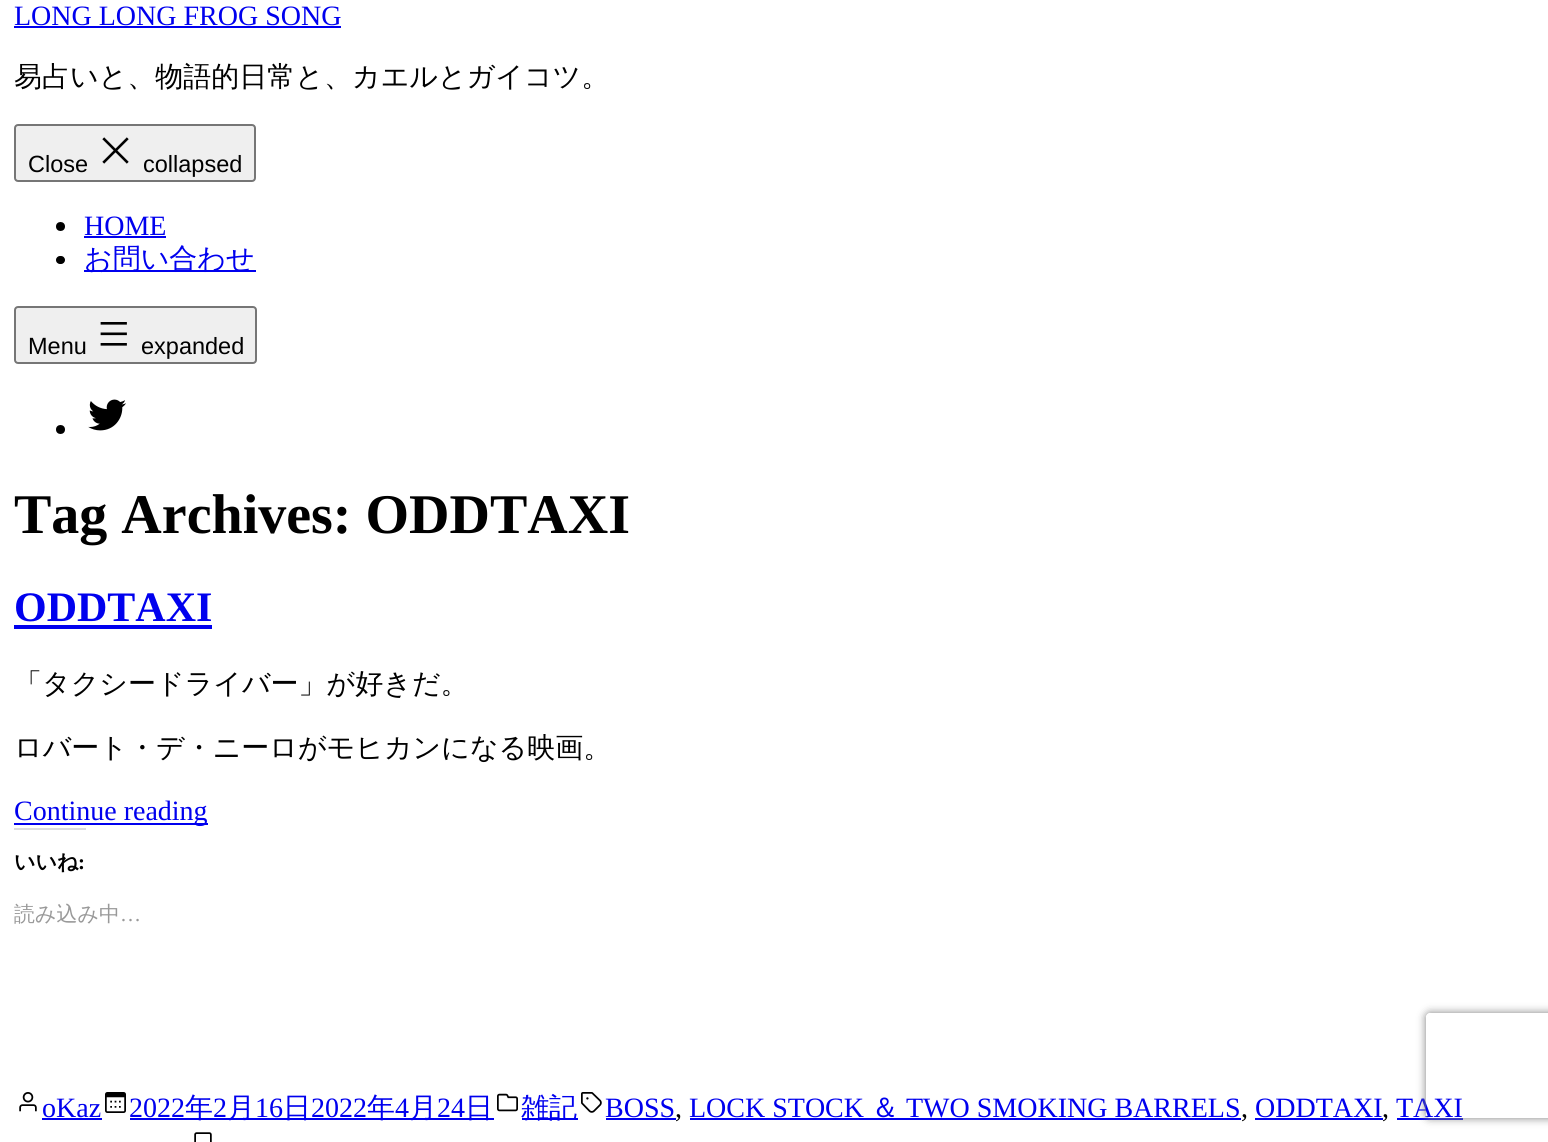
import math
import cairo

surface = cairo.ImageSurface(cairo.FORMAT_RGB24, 1548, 1142)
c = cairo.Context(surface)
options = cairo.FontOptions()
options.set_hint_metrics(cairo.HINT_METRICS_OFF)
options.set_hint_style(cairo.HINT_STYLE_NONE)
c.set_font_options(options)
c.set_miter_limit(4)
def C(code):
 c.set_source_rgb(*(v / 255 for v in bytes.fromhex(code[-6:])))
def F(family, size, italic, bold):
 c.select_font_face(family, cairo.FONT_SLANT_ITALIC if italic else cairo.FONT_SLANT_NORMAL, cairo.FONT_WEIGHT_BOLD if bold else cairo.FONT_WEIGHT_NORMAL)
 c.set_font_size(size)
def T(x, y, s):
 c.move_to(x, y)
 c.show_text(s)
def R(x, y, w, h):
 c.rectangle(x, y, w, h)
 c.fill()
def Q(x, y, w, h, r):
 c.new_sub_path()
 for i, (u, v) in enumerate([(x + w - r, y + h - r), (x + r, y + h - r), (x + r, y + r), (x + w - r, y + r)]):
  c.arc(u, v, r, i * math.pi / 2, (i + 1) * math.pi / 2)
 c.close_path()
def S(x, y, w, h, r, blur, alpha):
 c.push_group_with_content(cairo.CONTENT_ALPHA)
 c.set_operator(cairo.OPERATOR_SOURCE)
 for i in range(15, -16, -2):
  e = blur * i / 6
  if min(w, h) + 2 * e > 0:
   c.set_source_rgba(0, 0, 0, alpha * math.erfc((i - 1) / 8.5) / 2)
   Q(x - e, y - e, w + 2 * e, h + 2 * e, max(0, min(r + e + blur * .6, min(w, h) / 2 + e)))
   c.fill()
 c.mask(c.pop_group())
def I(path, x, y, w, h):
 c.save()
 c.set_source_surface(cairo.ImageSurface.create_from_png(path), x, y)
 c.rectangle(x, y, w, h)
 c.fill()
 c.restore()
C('ffffff')
c.paint()
F('Liberation Serif',28,0,0)
C('0000ee')
T(14,25,'LONG LONG FROG SONG')
R(14,26,327,2)
F('WenQuanYi Zen Hei Medium',28,0,0)
C('000000')
T(14,86,'易占いと、物語的日常と、カエルとガイコツ。')
C('efefef')
Q(15,125,240,56,3)
c.fill_preserve()
C('767676')
c.stroke()
F('Liberation Sans',23.5,0,0)
C('000000')
T(28,172,'Close')
I('1.png',102,137,27,27)
T(143,172,'collapsed')
c.new_path()
c.arc(60.5,226.5,4.5,0,2 * math.pi)
c.fill()
F('Liberation Serif',28,0,0)
C('0000ee')
T(84,235,'HOME')
R(84,236,82,2)
C('000000')
Q(56,256,9,8,4)
c.fill()
C('0000ee')
R(84,270,172,2)
F('WenQuanYi Zen Hei Medium',28,0,0)
T(84,268,'お問い合わせ')
C('efefef')
Q(15,307,241,56,3)
c.fill_preserve()
C('767676')
c.stroke()
F('Liberation Sans',23.5,0,0)
C('000000')
T(28,354,'Menu')
I('2.png',100,322,27,24)
T(141,354,'expanded')
c.new_path()
c.arc(60.5,429.5,4.5,0,2 * math.pi)
c.fill()
I('3.png',88,399,38,32)
F('Liberation Serif',56,0,1)
T(14,533,'Tag Archives: ODDTAXI')
F('Liberation Serif',42,0,1)
C('0000ee')
T(14,621,'ODDTAXI')
R(14,625,198,4)
F('WenQuanYi Zen Hei Medium',28,0,0)
C('000000')
T(14,693,'「タクシードライバー」が好きだ。')
T(14,757,'ロバート・デ・ニーロがモヒカンになる映画。')
C('0000ee')
R(14,823,194,2)
F('Liberation Serif',28,0,0)
T(14,820,'Continue reading')
C('dcdcde')
R(14,828,72,2)
F('WenQuanYi Zen Hei',21,0,1)
C('000000')
T(14,869,'いいね')
F('Liberation Serif',21,0,1)
T(78,869,':')
F('WenQuanYi Zen Hei Medium',21,0,0)
C('999999')
T(14,921,'読み込み中')
F('Liberation Serif',21,0,0)
T(120,921,'…')
I('4.png',19,1092,18,20)
F('Liberation Serif',28,0,0)
C('0000ee')
T(42,1117,'oKaz')
R(42,1118,60,2)
I('5.png',105,1092,21,21)
T(129,1117,'2022')
R(130,1118,364,2)
F('WenQuanYi Zen Hei Medium',28,0,0)
T(185,1117,'年')
F('Liberation Serif',28,0,0)
T(213,1117,'2')
F('WenQuanYi Zen Hei Medium',28,0,0)
T(227,1117,'月')
F('Liberation Serif',28,0,0)
T(255,1117,'16')
F('WenQuanYi Zen Hei Medium',28,0,0)
T(283,1117,'日')
F('Liberation Serif',28,0,0)
T(311,1117,'2022')
F('WenQuanYi Zen Hei Medium',28,0,0)
T(367,1117,'年')
F('Liberation Serif',28,0,0)
T(395,1117,'4')
F('WenQuanYi Zen Hei Medium',28,0,0)
T(409,1117,'月')
F('Liberation Serif',28,0,0)
T(437,1117,'24')
F('WenQuanYi Zen Hei Medium',28,0,0)
T(465,1117,'日')
I('6.png',497,1093,21,19)
R(522,1118,56,2)
T(521,1117,'雑記')
I('7.png',581,1092,21,21)
F('Liberation Serif',28,0,0)
T(605,1117,'BOSS')
T(689,1117,'LOCK STOCK')
F('WenQuanYi Zen Hei Medium',28,0,0)
T(871,1117,'＆')
F('Liberation Serif',28,0,0)
T(906,1117,'TWO SMOKING BARRELS')
T(1255,1117,'ODDTAXI')
T(1396,1117,'TAXI')
C('000000')
T(675,1117,',')
C('0000ee')
R(606,1118,70,2)
C('000000')
T(1241,1117,',')
C('0000ee')
R(690,1118,551,2)
C('000000')
T(1382,1117,',')
C('0000ee')
R(1255,1118,128,2)
R(1397,1118,66,2)
I('8.png',194,1132,18,10)
c.save()
c.set_fill_rule(cairo.FILL_RULE_EVEN_ODD)
c.new_path()
c.move_to(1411,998)
c.line_to(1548,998)
c.line_to(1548,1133)
c.line_to(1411,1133)
c.close_path()
c.move_to(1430,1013)
c.line_to(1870,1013)
c.curve_to(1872,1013,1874,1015,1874,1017)
c.line_to(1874,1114)
c.curve_to(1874,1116,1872,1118,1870,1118)
c.line_to(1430,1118)
c.curve_to(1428,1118,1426,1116,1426,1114)
c.line_to(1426,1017)
c.curve_to(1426,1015,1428,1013,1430,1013)
c.close_path()
c.clip()
C('808080')
S(1426,1013,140,105,4,4.5,1)
c.restore()
surface.write_to_png('o.png')
